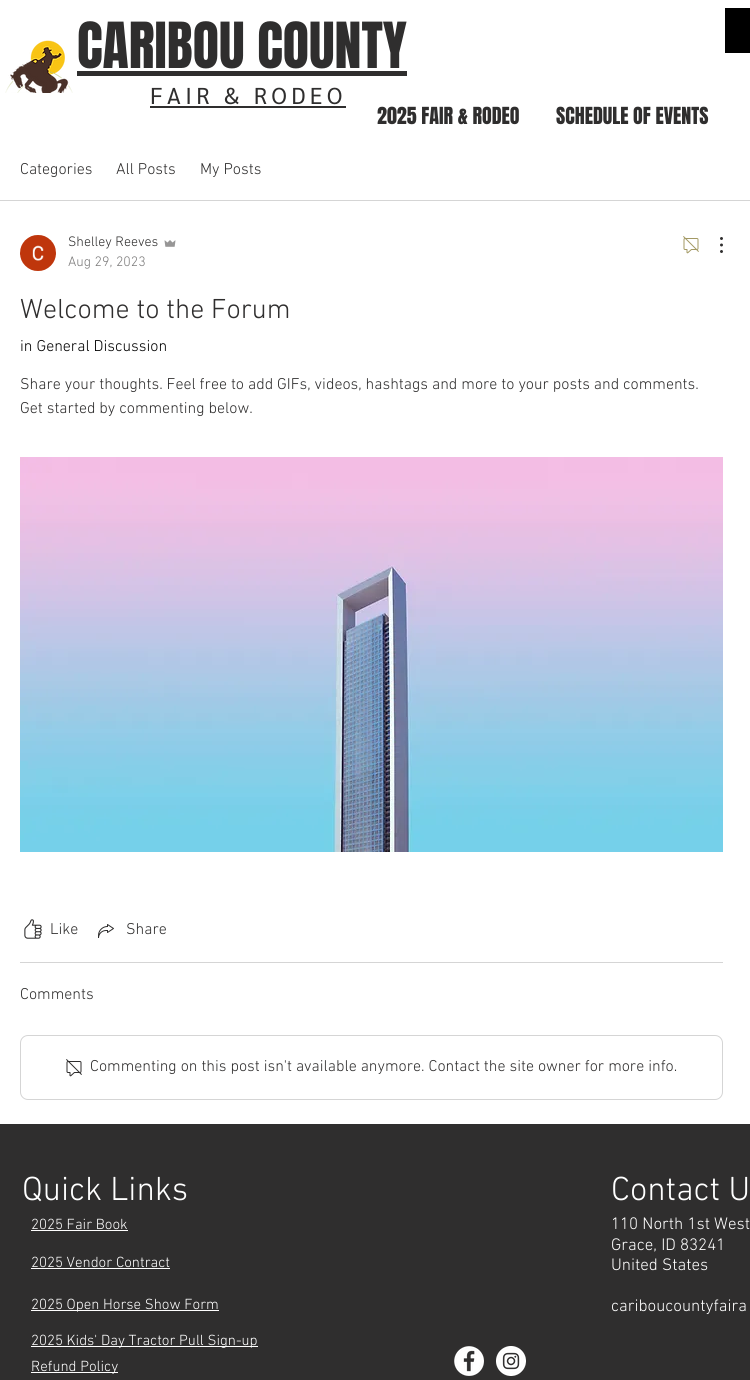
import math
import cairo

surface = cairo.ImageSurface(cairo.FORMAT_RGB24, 750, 1380)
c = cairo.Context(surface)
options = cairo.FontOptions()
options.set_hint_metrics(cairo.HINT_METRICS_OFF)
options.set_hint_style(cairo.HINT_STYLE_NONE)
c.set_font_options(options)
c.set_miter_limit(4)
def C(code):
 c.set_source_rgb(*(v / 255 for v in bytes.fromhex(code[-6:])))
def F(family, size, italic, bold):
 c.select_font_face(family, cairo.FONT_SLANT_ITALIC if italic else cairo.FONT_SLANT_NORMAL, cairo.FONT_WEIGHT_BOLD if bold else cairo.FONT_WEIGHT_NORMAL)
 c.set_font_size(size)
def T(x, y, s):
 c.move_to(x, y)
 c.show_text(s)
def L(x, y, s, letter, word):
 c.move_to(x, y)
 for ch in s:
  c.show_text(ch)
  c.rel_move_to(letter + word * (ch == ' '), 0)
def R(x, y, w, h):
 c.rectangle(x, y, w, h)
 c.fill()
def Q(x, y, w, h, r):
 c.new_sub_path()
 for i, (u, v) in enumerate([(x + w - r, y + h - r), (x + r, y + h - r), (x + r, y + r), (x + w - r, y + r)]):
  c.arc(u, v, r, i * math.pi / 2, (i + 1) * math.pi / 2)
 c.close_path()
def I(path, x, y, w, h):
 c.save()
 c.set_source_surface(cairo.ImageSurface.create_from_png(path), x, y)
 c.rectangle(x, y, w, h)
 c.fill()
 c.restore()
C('ffffff')
c.paint()
I('1.png',5,40,68,53)
F('Anton',54,0,0)
C('2f2e2e')
T(77,68,'CARIBOU COUNTY')
R(77,71,330,5)
C('000000')
R(725,8,25,45)
F('Sarabun',23,0,0)
C('2f2e2e')
L(150,104,'FAIR & RODEO',4.4,0)
R(150,106,196,2)
F('Anton',20,0,0)
T(377,124,'2025 FAIR & RODEO')
T(556,124,'SCHEDULE OF EVENTS')
C('d5d5d5')
R(0,200,750,1)
F('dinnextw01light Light',16,0,0)
C('2f2e2e')
T(20,174,'Categories')
T(116,174,'All Posts')
T(200,174,'My Posts')
I('2.png',20,235,36,36)
F('dinnextw01light Light',14,0,0)
T(68,246,'Shelley Reeves')
I('3.png',164,240,12,7)
C('7a7979')
T(68,266,'Aug 29, 2023')
I('4.png',683,236,16,18)
I('5.png',720,237,3,16)
F('dinnextw01light Light',28,0,0)
C('2f2e2e')
T(20,318,'Welcome to the Forum')
F('dinnextw01light Light',16,0,0)
C('000000')
T(20,351,'in General Discussion')
C('2f2e2e')
T(20,389,'Share your thoughts. Feel free to add GIFs, videos, hashtags and more to your posts and comments.')
T(20,413,'Get started by commenting below.')
I('6.png',20,457,703,395)
I('7.png',24,919,18,20)
T(50,934,'Like')
I('8.png',98,924,16,14)
T(126,934,'Share')
C('d5d5d5')
R(20,962,703,1)
C('2f2e2e')
T(20,999,'Comments')
Q(20.5,1035.5,702,64,7.5)
C('d5d5d5')
c.set_line_width(1)
c.stroke()
I('9.png',66,1059,16,18)
C('2f2e2e')
T(90,1071,'Commenting on this post isn\'t available anymore. Contact the site owner for more info.')
R(0,1124,750,256)
F('dinnextw01light Light',34,0,0)
C('ffffff')
T(22,1200,'Quick Links')
T(611,1200,'Contact U')
F('dinnextw01light Light',15,0,0)
T(31,1229,'2025 Fair Book')
R(31,1230,97,1)
F('dinnextw01light Light',17,0,0)
T(611,1229,'110 North 1st West')
T(611,1250,'Grace, ID 83241')
T(611,1270,'United States')
T(611,1311,'cariboucountyfaira')
F('dinnextw01light Light',15,0,0)
T(31,1267,'2025 Vendor Contract')
R(31,1268,139,1)
R(31,1310,188,1)
T(31,1309,'2025 Open Horse Show Form')
R(31,1346,227,1)
T(31,1345,'2025 Kids\' Day Tractor Pull Sign-up')
R(31,1372,87,1)
T(31,1371,'Refund Policy')
I('10.png',454,1346,30,30)
I('11.png',496,1346,30,30)
surface.write_to_png('o.png')
